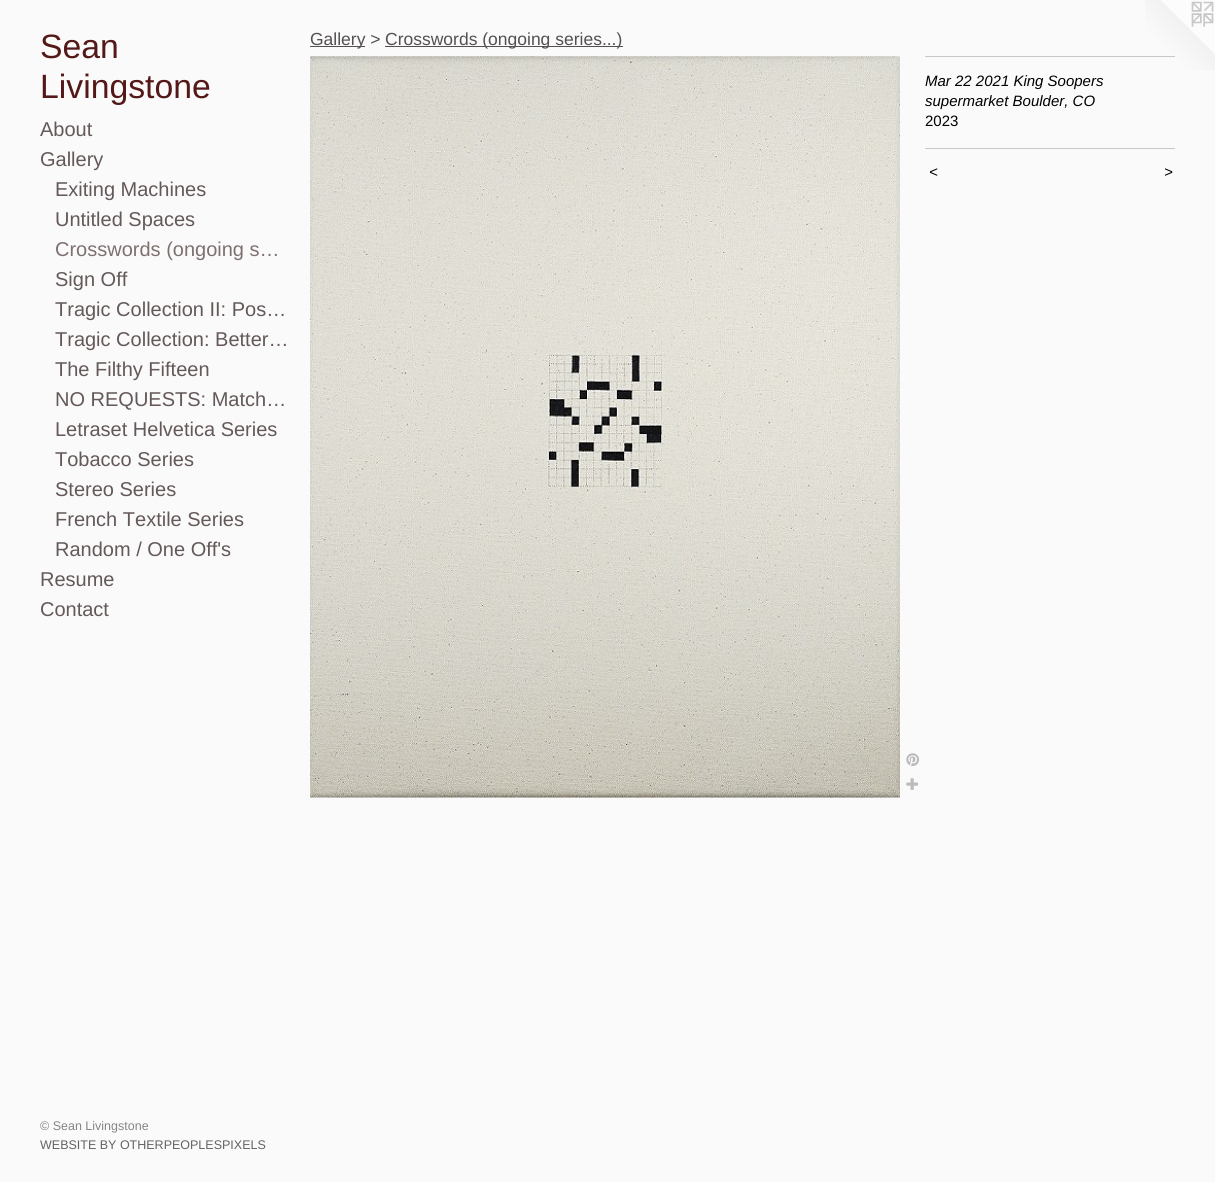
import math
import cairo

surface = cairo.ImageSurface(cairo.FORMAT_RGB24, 1215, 1182)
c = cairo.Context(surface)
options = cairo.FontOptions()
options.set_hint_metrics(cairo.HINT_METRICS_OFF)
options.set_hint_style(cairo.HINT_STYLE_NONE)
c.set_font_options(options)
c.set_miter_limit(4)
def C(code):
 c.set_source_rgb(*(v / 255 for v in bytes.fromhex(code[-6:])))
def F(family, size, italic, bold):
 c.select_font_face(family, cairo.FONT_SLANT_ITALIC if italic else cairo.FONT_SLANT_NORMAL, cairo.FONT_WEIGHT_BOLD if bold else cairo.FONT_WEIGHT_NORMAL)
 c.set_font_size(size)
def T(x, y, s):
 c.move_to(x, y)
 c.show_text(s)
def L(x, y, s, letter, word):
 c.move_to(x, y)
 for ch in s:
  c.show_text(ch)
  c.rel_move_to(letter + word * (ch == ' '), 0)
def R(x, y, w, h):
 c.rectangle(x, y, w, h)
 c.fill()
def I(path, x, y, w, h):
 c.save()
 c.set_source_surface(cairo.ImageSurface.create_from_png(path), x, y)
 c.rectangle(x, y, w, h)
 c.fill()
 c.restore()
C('fafafa')
c.paint()
F('Liberation Sans',33.75,0,0)
C('541818')
T(40,58,'Sean')
T(40,98,'Livingstone')
F('Liberation Sans',20,0,0)
C('645858')
T(40,136,'About')
T(40,166,'Gallery')
T(55,196,'Exiting Machines')
T(55,226,'Untitled Spaces')
C('7f7070')
T(55,256,'Crosswords (ongoing s…')
C('645858')
T(55,286,'Sign Off')
T(55,316,'Tragic Collection II: Pos…')
T(55,346,'Tragic Collection: Better…')
T(55,376,'The Filthy Fifteen')
T(55,406,'NO REQUESTS: Match…')
T(55,436,'Letraset Helvetica Series')
T(55,466,'Tobacco Series')
T(55,496,'Stereo Series')
T(55,526,'French Textile Series')
T(55,556,'Random / One Off\'s')
T(40,586,'Resume')
T(40,616,'Contact')
F('Liberation Sans',12.5,0,0)
C('858585')
T(40,1130,'© Sean Livingstone')
C('636363')
T(40,1149,'WEBSITE BY OTHERPEOPLESPIXELS')
C('545050')
R(310,46,55,1)
F('Liberation Sans',17.5,0,0)
T(310,45,'Gallery >')
R(385,46,238,1)
T(385,45,'Crosswords (ongoing series...)')
I('1.png',310,56,590,742)
I('2.png',906,753,13,13)
I('3.png',906,778,12,12)
I('4.png',1145,0,70,70)
C('c8c8c8')
R(925,56,250,1)
F('Liberation Sans',15,1,0)
C('000000')
T(925,86,'Mar 22 2021 King Soopers')
T(925,106,'supermarket Boulder, CO')
F('Liberation Sans',15,0,0)
T(925,126,'2023')
C('c8c8c8')
R(925,148,250,1)
F('Liberation Sans',15,1,0)
C('000000')
L(929,177,'<',1,0)
L(1164,177,'>',1,0)
surface.write_to_png('o.png')
